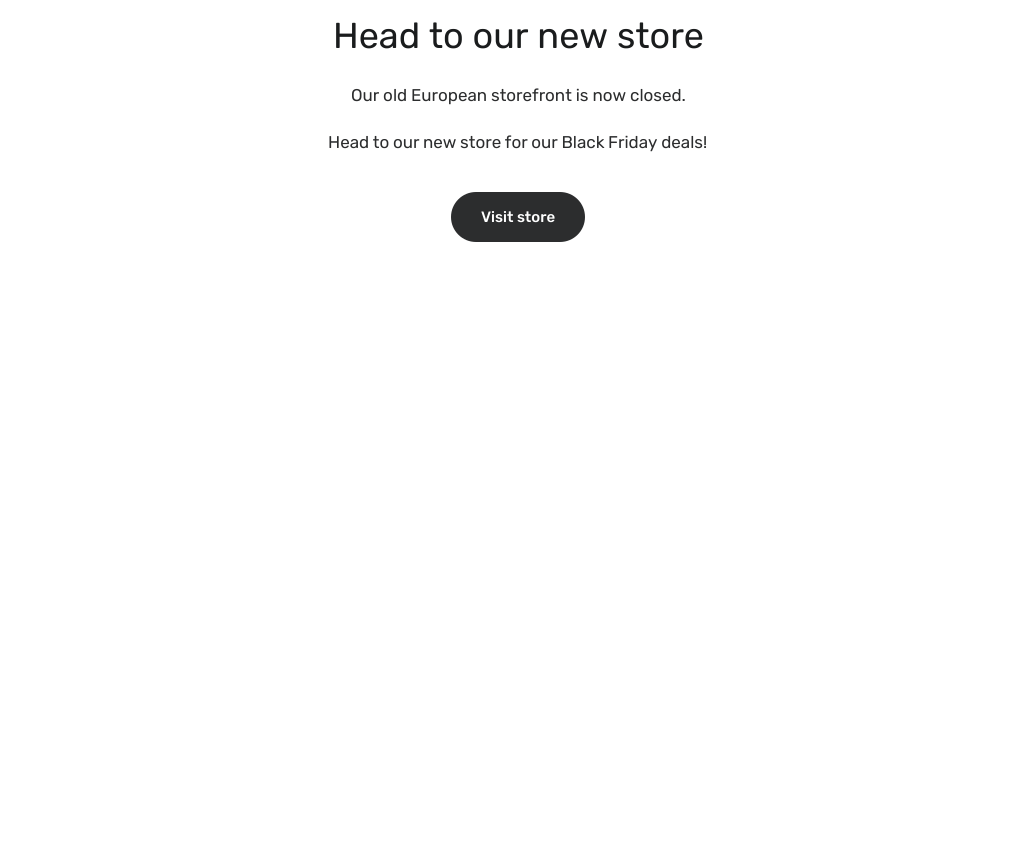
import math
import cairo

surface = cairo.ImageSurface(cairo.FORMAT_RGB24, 1036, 846)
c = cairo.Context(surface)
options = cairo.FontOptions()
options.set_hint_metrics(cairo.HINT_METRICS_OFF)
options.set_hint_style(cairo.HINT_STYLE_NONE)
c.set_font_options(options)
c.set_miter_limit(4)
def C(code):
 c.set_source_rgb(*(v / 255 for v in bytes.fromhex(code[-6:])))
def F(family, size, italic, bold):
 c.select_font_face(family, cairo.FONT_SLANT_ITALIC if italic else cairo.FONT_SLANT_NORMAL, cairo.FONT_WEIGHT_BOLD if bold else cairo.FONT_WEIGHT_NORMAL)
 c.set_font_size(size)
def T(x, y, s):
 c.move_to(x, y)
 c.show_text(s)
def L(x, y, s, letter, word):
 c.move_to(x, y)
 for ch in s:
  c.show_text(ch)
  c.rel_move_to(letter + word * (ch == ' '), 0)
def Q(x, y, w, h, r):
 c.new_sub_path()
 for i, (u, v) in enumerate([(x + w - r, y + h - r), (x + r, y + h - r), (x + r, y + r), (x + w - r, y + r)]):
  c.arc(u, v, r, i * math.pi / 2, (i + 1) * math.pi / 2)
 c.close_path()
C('ffffff')
c.paint()
F('Rubik',36,0,0)
C('1a1c1d')
T(333,48,'Head to our new store')
F('Rubik',17,0,0)
C('2c2d2e')
L(351,101,'Our old European storefront is now closed.',0,-.25)
L(328,148,'Head to our new store for our Black Friday deals!',0,-.5)
Q(451,192,134,50,25)
c.fill()
F('Rubik Medium',15,0,0)
C('ffffff')
T(481,222,'Visit store')
surface.write_to_png('o.png')
